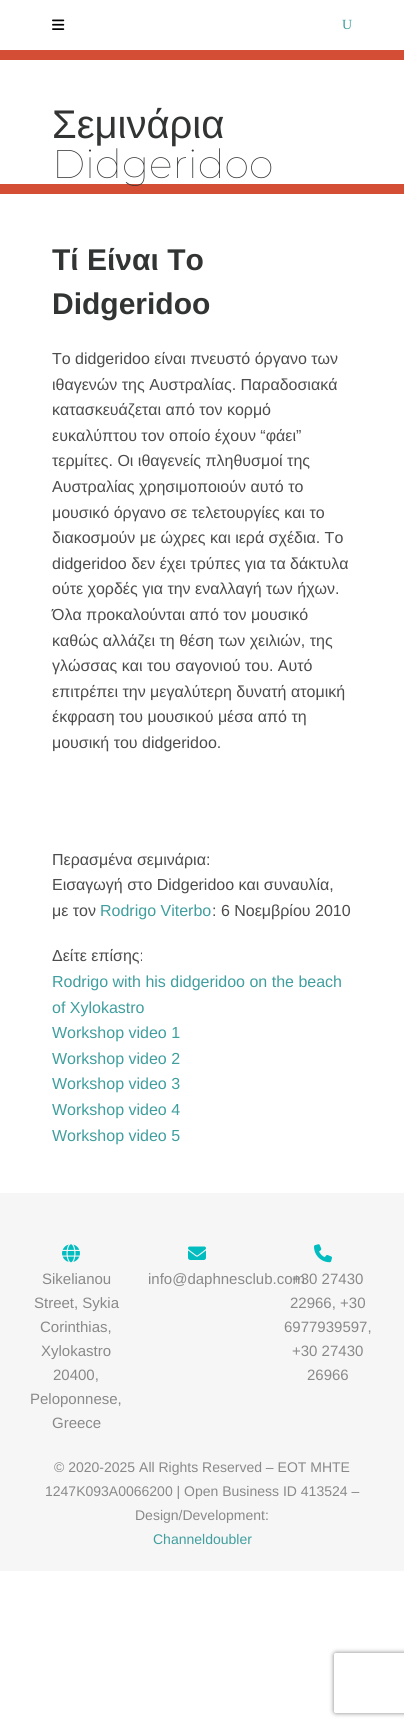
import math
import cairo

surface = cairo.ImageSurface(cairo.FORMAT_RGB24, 404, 1727)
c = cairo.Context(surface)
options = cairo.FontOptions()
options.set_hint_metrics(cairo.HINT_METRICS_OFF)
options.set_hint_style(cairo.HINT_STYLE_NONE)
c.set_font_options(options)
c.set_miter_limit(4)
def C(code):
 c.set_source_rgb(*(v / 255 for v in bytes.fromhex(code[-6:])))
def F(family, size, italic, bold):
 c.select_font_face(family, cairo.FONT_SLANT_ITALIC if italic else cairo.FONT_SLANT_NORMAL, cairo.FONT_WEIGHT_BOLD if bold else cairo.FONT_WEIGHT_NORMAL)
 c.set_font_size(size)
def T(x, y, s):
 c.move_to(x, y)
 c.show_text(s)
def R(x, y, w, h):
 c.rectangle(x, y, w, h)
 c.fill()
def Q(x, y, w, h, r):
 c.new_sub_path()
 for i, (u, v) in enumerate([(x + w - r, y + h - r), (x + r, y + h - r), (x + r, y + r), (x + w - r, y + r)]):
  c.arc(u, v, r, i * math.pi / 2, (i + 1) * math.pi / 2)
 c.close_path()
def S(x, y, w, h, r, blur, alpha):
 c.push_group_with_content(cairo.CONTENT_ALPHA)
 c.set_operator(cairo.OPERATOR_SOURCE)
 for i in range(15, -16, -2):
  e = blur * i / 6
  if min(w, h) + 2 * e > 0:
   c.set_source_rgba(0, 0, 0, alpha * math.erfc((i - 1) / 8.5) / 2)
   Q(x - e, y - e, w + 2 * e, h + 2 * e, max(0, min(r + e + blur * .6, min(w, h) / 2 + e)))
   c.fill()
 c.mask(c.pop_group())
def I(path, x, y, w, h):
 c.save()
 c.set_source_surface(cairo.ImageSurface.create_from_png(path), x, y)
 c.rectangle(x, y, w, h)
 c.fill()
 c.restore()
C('ffffff')
c.paint()
I('1.png',52,19,13,11)
F('Liberation Serif',14,0,0)
C('409e9e')
T(342,29,'U')
C('d34e35')
R(0,50,404,144)
C('ffffff')
R(0,60,404,124)
F('Liberation Sans',40,0,0)
C('323333')
T(52,138,'Σεμινάρια')
F('Montserrat Thin',40,0,0)
T(52,178,'Didgeridoo')
F('Liberation Sans',30,0,1)
T(52,270,'Τί Είναι Το')
T(52,314,'Didgeridoo')
F('Liberation Sans',16,0,0)
C('4c4c4c')
T(52,364,'Το didgeridoo είναι πνευστό όργανο των')
T(52,390,'ιθαγενών της Αυστραλίας. Παραδοσιακά')
T(52,415,'κατασκευάζεται από τον κορμό')
T(52,441,'ευκαλύπτου τον οποίο έχουν “φάει”')
T(52,466,'τερμίτες. Οι ιθαγενείς πληθυσμοί της')
T(52,492,'Αυστραλίας χρησιμοποιούν αυτό το')
T(52,518,'μουσικό όργανο σε τελετουργίες και το')
T(52,543,'διακοσμούν με ώχρες και ιερά σχέδια. Το')
T(52,569,'didgeridoo δεν έχει τρύπες για τα δάκτυλα')
T(52,594,'ούτε χορδές για την εναλλαγή των ήχων.')
T(52,620,'Όλα προκαλούνται από τον μουσικό')
T(52,646,'καθώς αλλάζει τη θέση των χειλιών, της')
T(52,671,'γλώσσας και του σαγονιού του. Αυτό')
T(52,697,'επιτρέπει την μεγαλύτερη δυνατή ατομική')
T(52,722,'έκφραση του μουσικού μέσα από τη')
T(52,748,'μουσική του didgeridoo.')
T(52,865,'Περασμένα σεμινάρια:')
T(52,890,'Εισαγωγή στο Didgeridoo και συναυλία,')
T(52,916,'με τον')
C('409e9e')
T(100,916,'Rodrigo Viterbo')
C('4c4c4c')
T(212,916,': 6 Νοεμβρίου 2010')
T(52,961,'Δείτε επίσης:')
C('409e9e')
T(52,987,'Rodrigo with his didgeridoo on the beach')
T(52,1013,'of Xylokastro')
T(52,1038,'Workshop video 1')
T(52,1064,'Workshop video 2')
T(52,1089,'Workshop video 3')
T(52,1115,'Workshop video 4')
T(52,1141,'Workshop video 5')
C('f6f6f6')
R(0,1193,404,378)
I('2.png',62,1244,18,19)
F('Liberation Sans',15,0,0)
C('898989')
T(42,1284,'Sikelianou')
T(34,1308,'Street, Sykia')
T(40,1332,'Corinthias,')
T(41,1356,'Xylokastro')
T(53,1380,'20400,')
T(30,1404,'Peloponnese,')
T(52,1428,'Greece')
I('3.png',188,1246,18,14)
T(148,1284,'info@daphnesclub.com')
I('4.png',314,1244,18,19)
T(292,1284,'+30 27430')
T(290,1308,'22966, +30')
T(284,1332,'6977939597,')
T(292,1356,'+30 27430')
T(307,1380,'26966')
F('Liberation Sans',14,0,0)
T(54,1472,'© 2020-2025 All Rights Reserved – EOT MHTE')
T(45,1496,'1247Κ093Α0066200 | Open Business ID 413524 –')
T(135,1520,'Design/Development:')
C('409e9e')
T(153,1544,'Channeldoubler')
c.save()
c.set_fill_rule(cairo.FILL_RULE_EVEN_ODD)
c.new_path()
c.move_to(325,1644)
c.line_to(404,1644)
c.line_to(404,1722)
c.line_to(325,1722)
c.close_path()
c.move_to(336,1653)
c.line_to(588,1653)
c.curve_to(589,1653,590,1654,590,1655)
c.line_to(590,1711)
c.curve_to(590,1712,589,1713,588,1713)
c.line_to(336,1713)
c.curve_to(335,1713,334,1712,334,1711)
c.line_to(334,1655)
c.curve_to(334,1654,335,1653,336,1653)
c.close_path()
c.clip()
C('808080')
S(334,1653,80,60,2,2.5,1)
c.restore()
surface.write_to_png('o.png')
